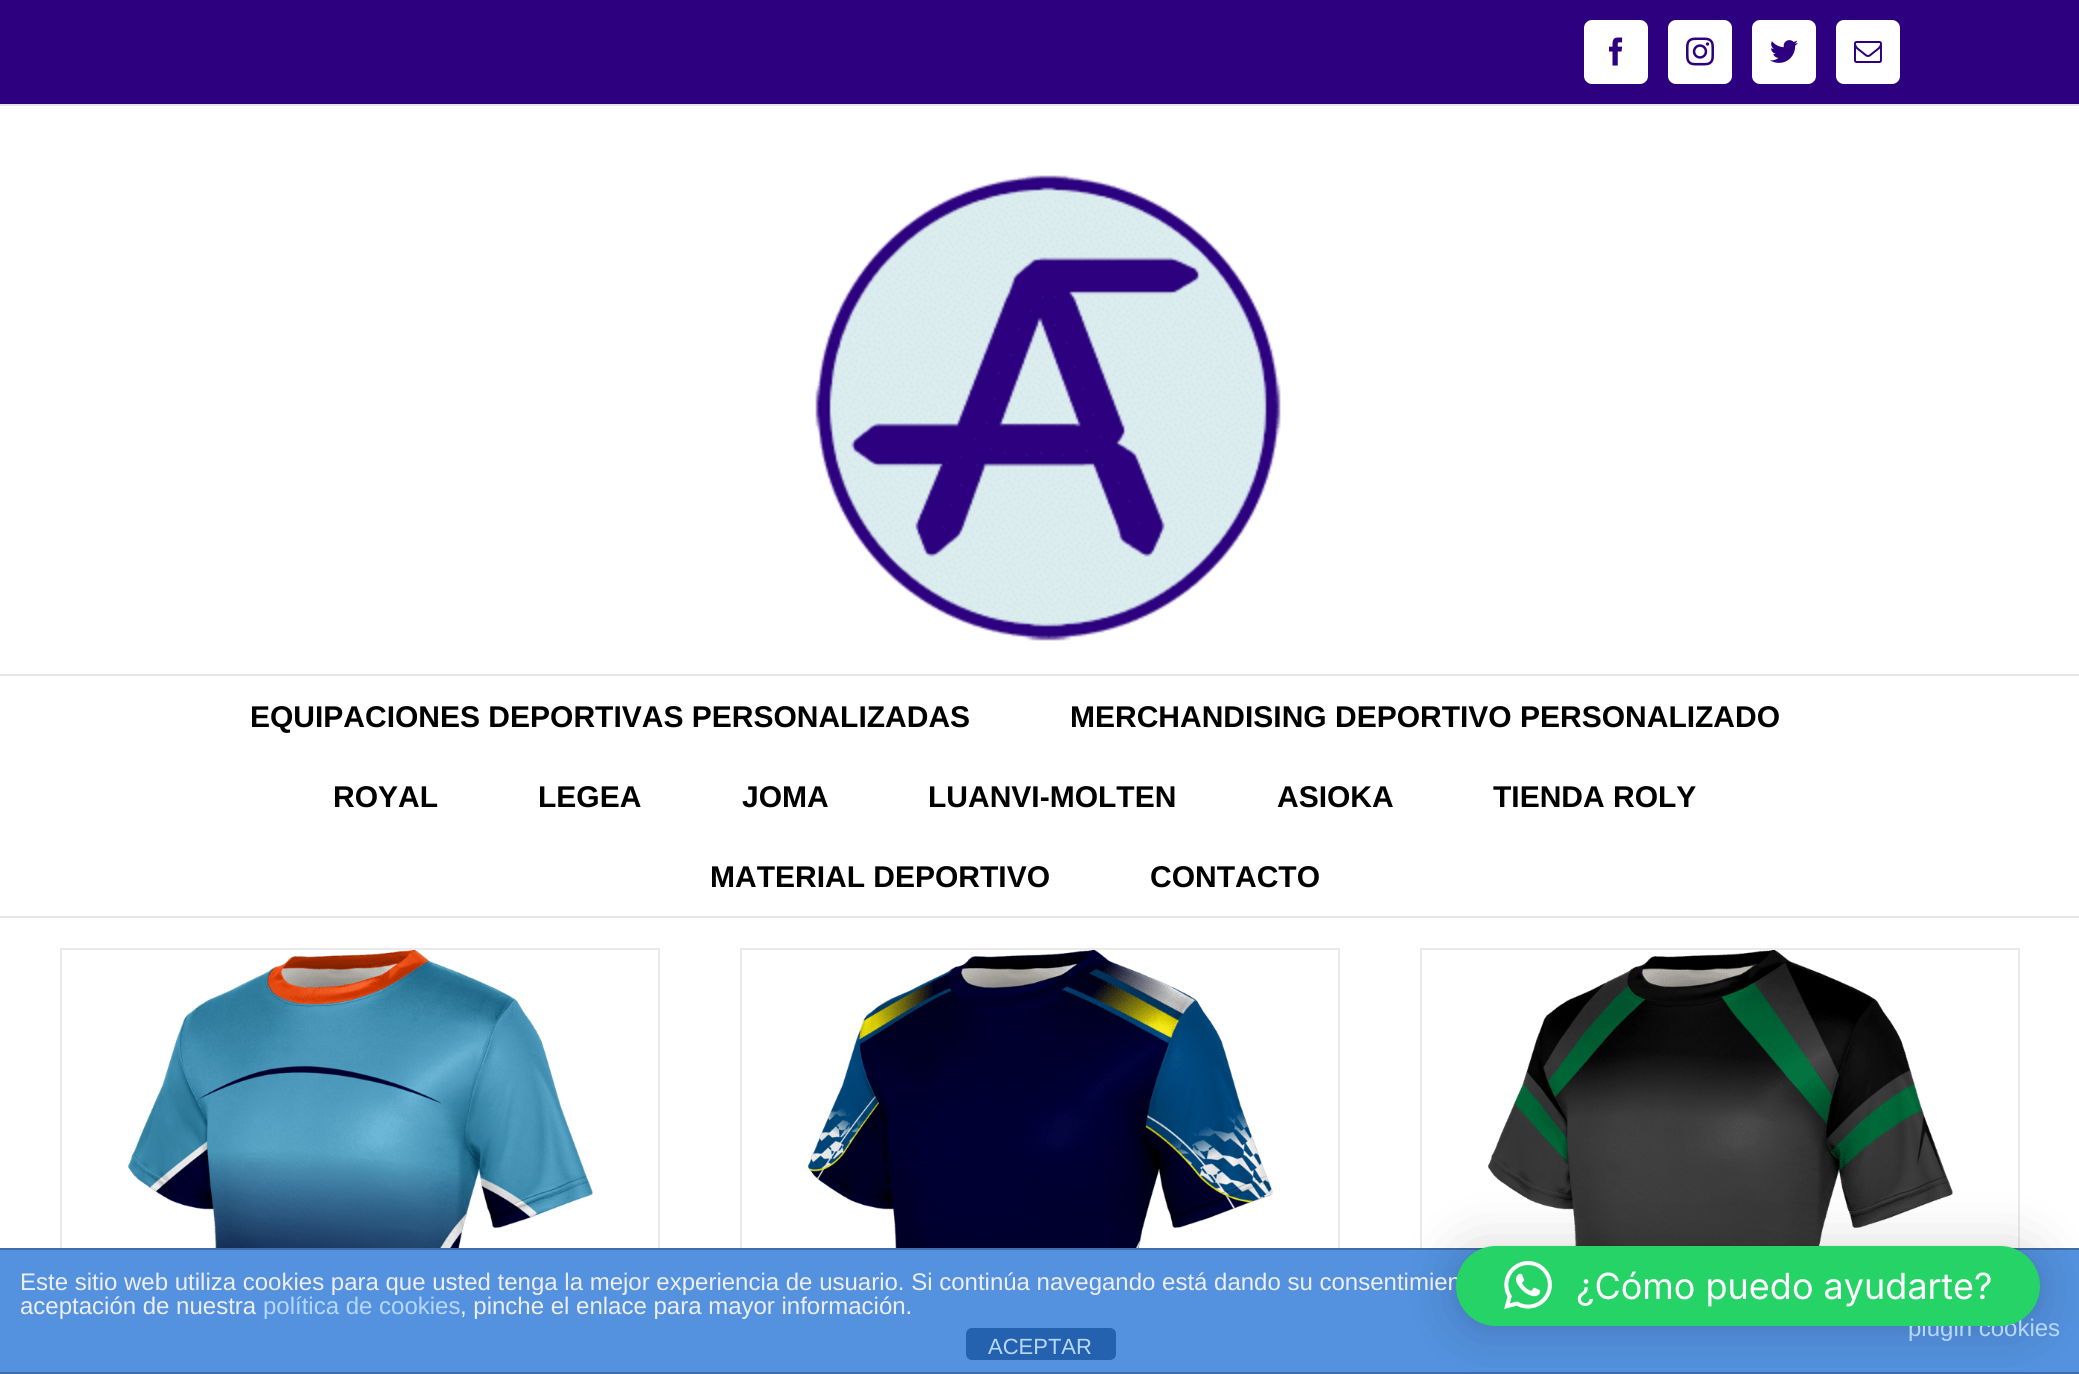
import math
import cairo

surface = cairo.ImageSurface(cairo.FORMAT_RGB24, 2079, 1374)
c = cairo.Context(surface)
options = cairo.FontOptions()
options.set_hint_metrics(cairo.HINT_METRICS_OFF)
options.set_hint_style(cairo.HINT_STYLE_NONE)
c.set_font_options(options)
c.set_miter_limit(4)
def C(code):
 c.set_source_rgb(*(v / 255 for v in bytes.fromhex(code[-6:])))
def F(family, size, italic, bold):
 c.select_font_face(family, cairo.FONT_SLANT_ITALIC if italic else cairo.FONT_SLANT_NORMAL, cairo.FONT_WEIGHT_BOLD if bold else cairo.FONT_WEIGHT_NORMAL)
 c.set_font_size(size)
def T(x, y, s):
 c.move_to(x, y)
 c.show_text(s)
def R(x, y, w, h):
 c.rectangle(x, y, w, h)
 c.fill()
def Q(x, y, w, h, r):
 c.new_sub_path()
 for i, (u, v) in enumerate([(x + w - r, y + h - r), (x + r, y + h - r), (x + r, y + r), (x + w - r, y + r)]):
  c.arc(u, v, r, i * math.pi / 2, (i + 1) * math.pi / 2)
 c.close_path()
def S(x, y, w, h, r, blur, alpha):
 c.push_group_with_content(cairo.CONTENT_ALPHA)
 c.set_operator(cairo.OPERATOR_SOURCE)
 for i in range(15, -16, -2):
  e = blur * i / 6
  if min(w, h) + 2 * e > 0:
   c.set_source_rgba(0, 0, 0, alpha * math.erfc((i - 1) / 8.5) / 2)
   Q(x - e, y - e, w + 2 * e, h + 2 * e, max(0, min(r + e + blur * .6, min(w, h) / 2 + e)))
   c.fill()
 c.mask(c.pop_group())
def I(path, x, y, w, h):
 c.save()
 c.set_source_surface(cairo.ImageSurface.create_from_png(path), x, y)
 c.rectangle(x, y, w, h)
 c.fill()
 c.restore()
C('ffffff')
c.paint()
C('2c007f')
R(0,0,2079,104)
C('e5e5e5')
R(0,104,2079,2)
C('ffffff')
Q(1585,21,62,62,7)
c.fill_preserve()
c.stroke()
I('1.png',1609,37,14,29)
Q(1669,21,62,62,7)
c.fill_preserve()
c.stroke()
I('2.png',1686,37,28,29)
Q(1753,21,62,62,7)
c.fill_preserve()
c.stroke()
I('3.png',1770,40,28,23)
Q(1837,21,62,62,7)
c.fill_preserve()
c.stroke()
I('4.png',1854,41,28,22)
C('e5e5e5')
R(0,674,2079,2)
I('5.png',815,175,466,466)
R(0,916,2079,2)
F('Liberation Sans',30,0,1)
C('000000')
T(250,727,'EQUIPACIONES DEPORTIVAS PERSONALIZADAS')
T(1070,727,'MERCHANDISING DEPORTIVO PERSONALIZADO')
T(333,807,'ROYAL')
T(538,807,'LEGEA')
T(742,807,'JOMA')
T(928,807,'LUANVI-MOLTEN')
T(1277,807,'ASIOKA')
T(1493,807,'TIENDA ROLY')
T(710,887,'MATERIAL DEPORTIVO')
T(1150,887,'CONTACTO')
C('ebeaea')
R(60,948,600,2)
R(658,948,2,300)
R(60,948,2,300)
I('6.png',128,950,465,298)
R(740,948,600,2)
R(1338,948,2,300)
R(740,948,2,300)
I('7.png',808,950,465,298)
R(1420,948,600,2)
R(2018,948,2,300)
R(1420,948,2,300)
I('8.png',1488,950,465,296)
C('5492e0')
R(0,1250,2079,122)
C('3f6da7')
R(0,1248,2079,2)
R(0,1372,2079,2)
C('000000')
S(1456,1250,584,80,40,32,.16)
S(1456,1248,584,80,40,6,.06)
F('Liberation Sans',24,0,0)
C('eeeeee')
T(20,1290,'Este sitio web utiliza cookies para que usted tenga la mejor experiencia de usuario. Si continúa navegando está dando su consentimien')
C('b7d7ff')
T(1908,1336,'plugin cookies')
C('25d366')
Q(1456,1246,584,80,40)
c.fill()
I('9.png',1504,1261,48,48)
F('Inter',36,0,0)
C('ffffff')
T(1576,1299,'¿Cómo puedo ayudarte?')
F('Liberation Sans',24,0,0)
C('eeeeee')
T(20,1314,'aceptación de nuestra')
C('b7d7ff')
T(263,1314,'política de cookies')
C('eeeeee')
T(460,1314,', pinche el enlace para mayor información.')
C('2462b0')
Q(966,1328,150,32,6)
c.fill()
F('Liberation Sans',22,0,0)
C('b7d7ff')
T(988,1354,'ACEPTAR')
surface.write_to_png('o.png')
